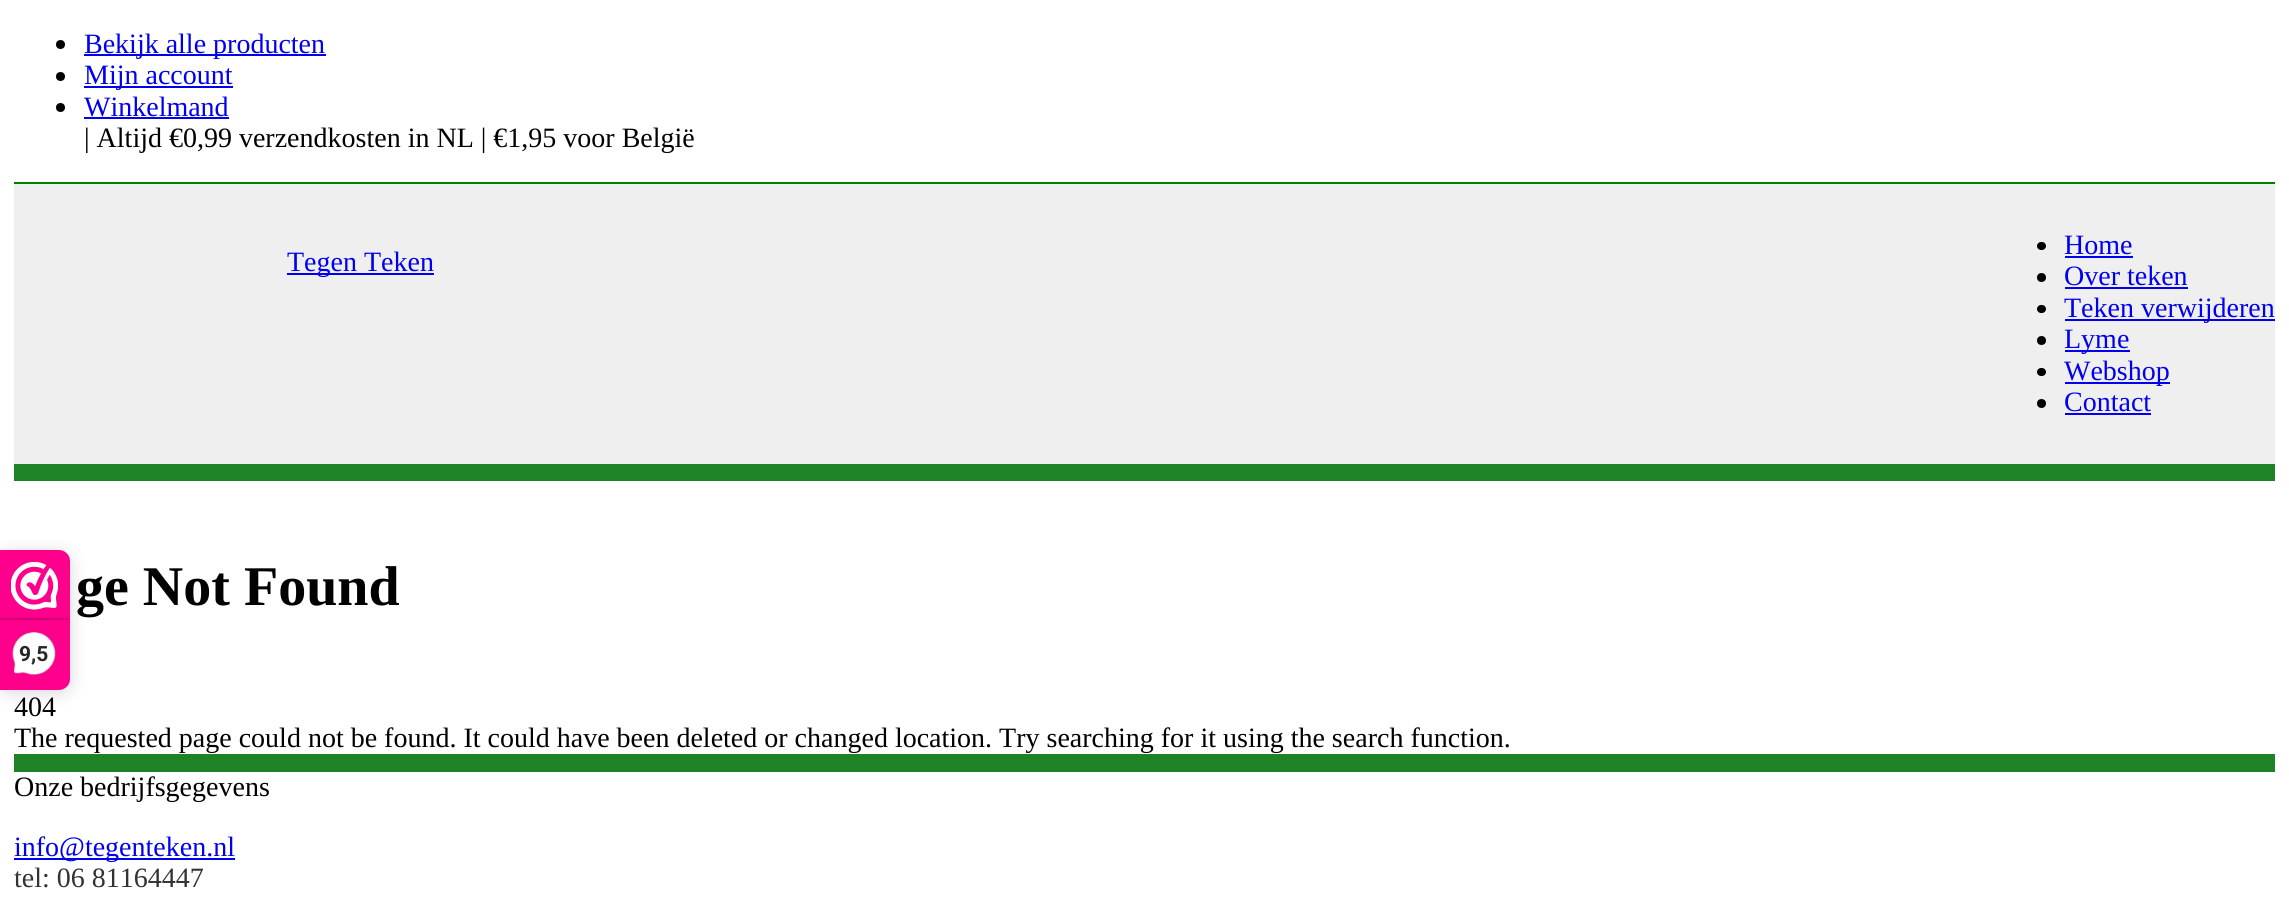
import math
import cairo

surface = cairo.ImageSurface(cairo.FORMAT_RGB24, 2289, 917)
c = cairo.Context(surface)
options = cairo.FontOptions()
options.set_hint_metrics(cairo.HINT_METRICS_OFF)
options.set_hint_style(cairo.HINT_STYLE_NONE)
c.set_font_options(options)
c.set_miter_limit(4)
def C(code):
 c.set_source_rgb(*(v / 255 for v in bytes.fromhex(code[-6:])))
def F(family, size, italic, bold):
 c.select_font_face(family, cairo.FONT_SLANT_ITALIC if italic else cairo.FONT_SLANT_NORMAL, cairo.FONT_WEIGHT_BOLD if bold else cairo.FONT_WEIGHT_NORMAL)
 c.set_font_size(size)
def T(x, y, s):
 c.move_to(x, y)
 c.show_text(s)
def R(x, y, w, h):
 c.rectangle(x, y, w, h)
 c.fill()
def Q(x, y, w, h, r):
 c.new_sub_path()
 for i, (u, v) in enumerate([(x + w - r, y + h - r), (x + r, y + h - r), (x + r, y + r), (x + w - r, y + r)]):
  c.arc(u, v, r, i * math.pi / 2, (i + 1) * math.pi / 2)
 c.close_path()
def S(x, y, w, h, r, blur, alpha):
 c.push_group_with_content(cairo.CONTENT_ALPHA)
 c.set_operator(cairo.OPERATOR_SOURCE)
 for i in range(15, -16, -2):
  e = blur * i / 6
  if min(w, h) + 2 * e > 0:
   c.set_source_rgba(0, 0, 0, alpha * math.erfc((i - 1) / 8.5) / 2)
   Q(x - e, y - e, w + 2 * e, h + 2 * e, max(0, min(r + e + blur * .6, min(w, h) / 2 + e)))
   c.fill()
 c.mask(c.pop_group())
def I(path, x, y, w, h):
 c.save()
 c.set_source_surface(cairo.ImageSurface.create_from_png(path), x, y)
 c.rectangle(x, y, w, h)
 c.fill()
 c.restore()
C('ffffff')
c.paint()
C('008000')
R(14,182,2261,2)
C('000000')
c.arc(60.5,44.5,4.5,0,2 * math.pi)
c.fill()
C('0000ee')
R(84,54,242,2)
F('Liberation Serif',28,0,0)
T(84,53,'Bekijk alle producten')
C('000000')
c.new_path()
c.arc(60.5,76.5,4.5,0,2 * math.pi)
c.fill()
C('0000ee')
R(84,86,149,2)
T(84,84,'Mijn account')
C('000000')
c.new_path()
c.arc(60.5,107.5,4.5,0,2 * math.pi)
c.fill()
C('0000ee')
T(84,116,'Winkelmand')
R(84,117,145,2)
C('000000')
T(84,147,'| Altijd €0,99 verzendkosten in NL | €1,95 voor België')
C('efefef')
R(14,184,2261,280)
C('1e8327')
R(14,464,2261,17)
C('0000ee')
R(287,273,147,2)
T(287,271,'Tegen Teken')
C('000000')
Q(2037,242,9,8,4)
c.fill()
C('0000ee')
T(2064,254,'Home')
R(2065,256,68,2)
C('000000')
c.new_path()
c.arc(2041.5,277.5,4.5,0,2 * math.pi)
c.fill()
C('0000ee')
T(2064,285,'Over teken')
R(2065,287,123,2)
C('000000')
Q(2037,305,9,8,4)
c.fill()
C('0000ee')
R(2065,319,210,2)
T(2064,317,'Teken verwijderen')
C('000000')
c.new_path()
c.arc(2041.5,340.5,4.5,0,2 * math.pi)
c.fill()
C('0000ee')
R(2065,350,65,2)
T(2064,348,'Lyme')
C('000000')
Q(2037,368,9,8,4)
c.fill()
C('0000ee')
R(2065,382,105,2)
T(2064,380,'Webshop')
C('000000')
c.new_path()
c.arc(2041.5,403.5,4.5,0,2 * math.pi)
c.fill()
C('0000ee')
T(2064,411,'Contact')
R(2065,413,86,2)
F('Liberation Serif',56,0,1)
C('000000')
T(76,605,'ge Not Found')
F('Liberation Serif',28,0,0)
T(14,716,'404')
T(14,747,'The requested page could not be found. It could have been deleted or changed location. Try searching for it using the search function.')
C('1e8327')
R(14,754,2261,18)
C('000000')
T(14,796,'Onze bedrijfsgegevens')
C('0000ee')
R(14,858,221,2)
T(14,856,'info@tegenteken.nl')
C('333333')
T(14,887,'tel: 06 81164447')
C('000000')
S(0,553,70,140,11,9,.15)
C('fe008c')
c.new_path()
c.move_to(0,550)
c.line_to(59,550)
c.curve_to(65,550,70,555,70,561)
c.line_to(70,679)
c.curve_to(70,685,65,690,59,690)
c.line_to(0,690)
c.close_path()
c.fill()
I('1.png',11,562,47,48)
C('d80077')
R(0,618,68,2)
I('2.png',12,632,44,44)
F('Roboto',21,0,1)
C('272626')
T(19,661,'9,5')
surface.write_to_png('o.png')
